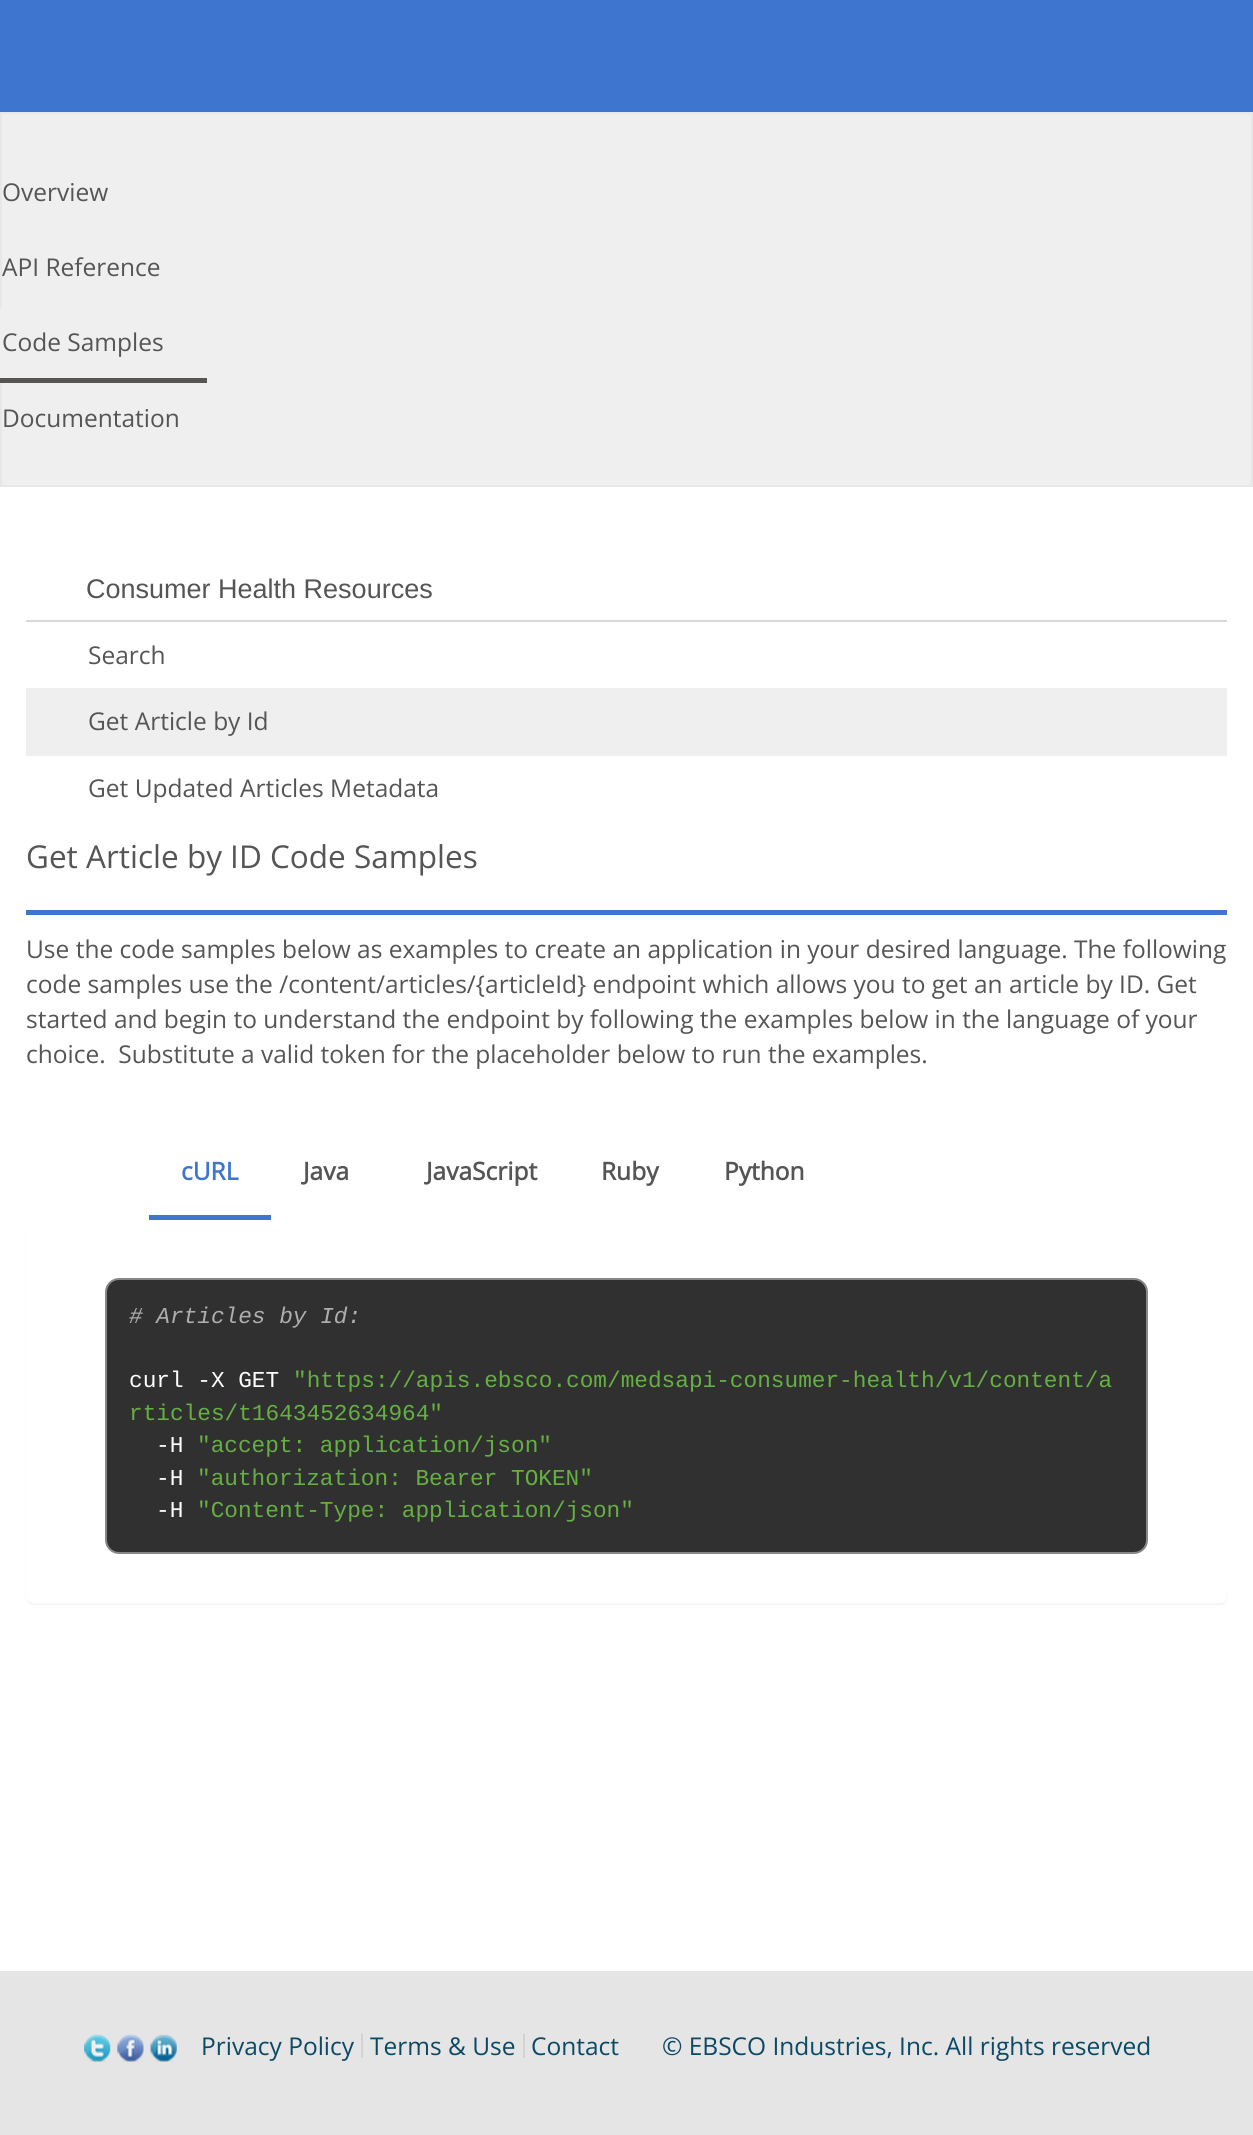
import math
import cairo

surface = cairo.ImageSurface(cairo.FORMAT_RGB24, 1253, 2135)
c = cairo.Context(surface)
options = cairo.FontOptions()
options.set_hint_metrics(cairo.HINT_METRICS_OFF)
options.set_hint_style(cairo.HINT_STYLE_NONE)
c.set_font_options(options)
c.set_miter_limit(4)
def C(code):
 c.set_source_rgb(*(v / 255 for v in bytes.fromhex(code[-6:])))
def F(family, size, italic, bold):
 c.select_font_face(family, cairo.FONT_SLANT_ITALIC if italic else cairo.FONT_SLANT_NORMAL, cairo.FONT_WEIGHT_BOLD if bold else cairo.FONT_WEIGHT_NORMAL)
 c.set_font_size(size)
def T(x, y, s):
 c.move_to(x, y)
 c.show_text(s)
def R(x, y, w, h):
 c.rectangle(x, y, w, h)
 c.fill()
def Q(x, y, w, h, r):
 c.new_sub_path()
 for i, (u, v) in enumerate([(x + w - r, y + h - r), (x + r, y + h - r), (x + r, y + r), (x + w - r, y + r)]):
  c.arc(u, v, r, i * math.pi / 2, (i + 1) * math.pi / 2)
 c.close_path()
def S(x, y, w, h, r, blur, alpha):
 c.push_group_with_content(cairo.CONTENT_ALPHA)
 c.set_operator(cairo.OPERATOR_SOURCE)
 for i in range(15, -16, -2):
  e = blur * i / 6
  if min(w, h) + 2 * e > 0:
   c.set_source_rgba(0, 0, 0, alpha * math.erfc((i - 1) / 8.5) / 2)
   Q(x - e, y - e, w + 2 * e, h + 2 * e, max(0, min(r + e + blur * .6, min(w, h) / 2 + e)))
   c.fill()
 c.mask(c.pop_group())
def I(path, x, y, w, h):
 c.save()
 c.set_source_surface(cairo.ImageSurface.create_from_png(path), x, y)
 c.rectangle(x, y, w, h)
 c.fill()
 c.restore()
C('ffffff')
c.paint()
C('3e75cf')
R(0,0,1253,112)
C('efefef')
c.rectangle(1,113,1251,373)
c.fill_preserve()
C('e7e7e7')
c.stroke()
F('Open Sans',24.5,0,0)
C('555555')
T(2,201,'Overview')
T(2,276,'API Reference')
C('efefef')
R(0,308,2,70)
C('595454')
R(0,378,207,5)
C('555555')
T(2,351,'Code Samples')
T(2,427,'Documentation')
C('d7d7d7')
R(26,620,1201,2)
F('Liberation Sans',27,0,0)
C('555555')
T(86,598,'Consumer Health Resources')
F('Open Sans',24.5,0,0)
T(88,664,'Search')
C('efefef')
R(26,688,1201,68)
C('555555')
T(88,730,'Get Article by Id')
T(88,797,'Get Updated Articles Metadata')
C('3e75cf')
R(26,910,1201,5)
F('Open Sans',31.5,0,0)
C('555555')
T(26,868,'Get Article by ID Code Samples')
F('Open Sans',24.5,0,0)
T(26,958,'Use the code samples below as examples to create an application in your desired language. The following')
T(26,993,'code samples use the /content/articles/{articleId} endpoint which allows you to get an article by ID. Get')
T(26,1028,'started and begin to understand the endpoint by following the examples below in the language of your')
T(26,1063,'choice.  Substitute a valid token for the placeholder below to run the examples.')
C('3e75cf')
R(149,1215,122,5)
F('Open Sans',24.5,0,1)
T(181,1180,'cURL')
C('555555')
T(303,1180,'Java')
T(426,1180,'JavaScript')
T(601,1180,'Ruby')
T(724,1180,'Python')
C('000000')
S(26,1230,1201,375,7,1,.05)
C('ffffff')
Q(26,1229,1201,374,7)
c.fill()
C('303030')
Q(106,1279,1041,274,13)
c.fill_preserve()
C('888888')
c.stroke()
F('Liberation Mono',22.75,1,0)
C('aeaeae')
T(129,1323,'# Articles by Id:')
F('Liberation Mono',22.75,0,0)
C('ffffff')
T(129,1387,'curl -X GET')
C('65b042')
T(293,1387,'"https://apis.ebsco.com/medsapi-consumer-health/v1/content/a')
T(129,1420,'rticles/t1643452634964"')
C('ffffff')
T(156,1452,'-H')
C('65b042')
T(197,1452,'"accept: application/json"')
C('ffffff')
T(156,1485,'-H')
C('65b042')
T(197,1485,'"authorization: Bearer TOKEN"')
C('ffffff')
T(156,1517,'-H')
C('65b042')
T(197,1517,'"Content-Type: application/json"')
C('e5e5e5')
R(0,1971,1253,164)
I('1.png',84,2034,27,28)
I('2.png',117,2034,27,28)
I('3.png',150,2034,27,28)
F('Open Sans',24.5,0,0)
C('0b4965')
T(201,2055,'Privacy Policy')
C('d2d2d2')
R(361,2034,2,24)
C('0b4965')
T(370,2055,'Terms & Use')
C('d2d2d2')
R(523,2034,2,24)
C('0b4965')
T(531,2055,'Contact')
T(662,2055,'© EBSCO Industries, Inc. All rights reserved')
surface.write_to_png('o.png')
